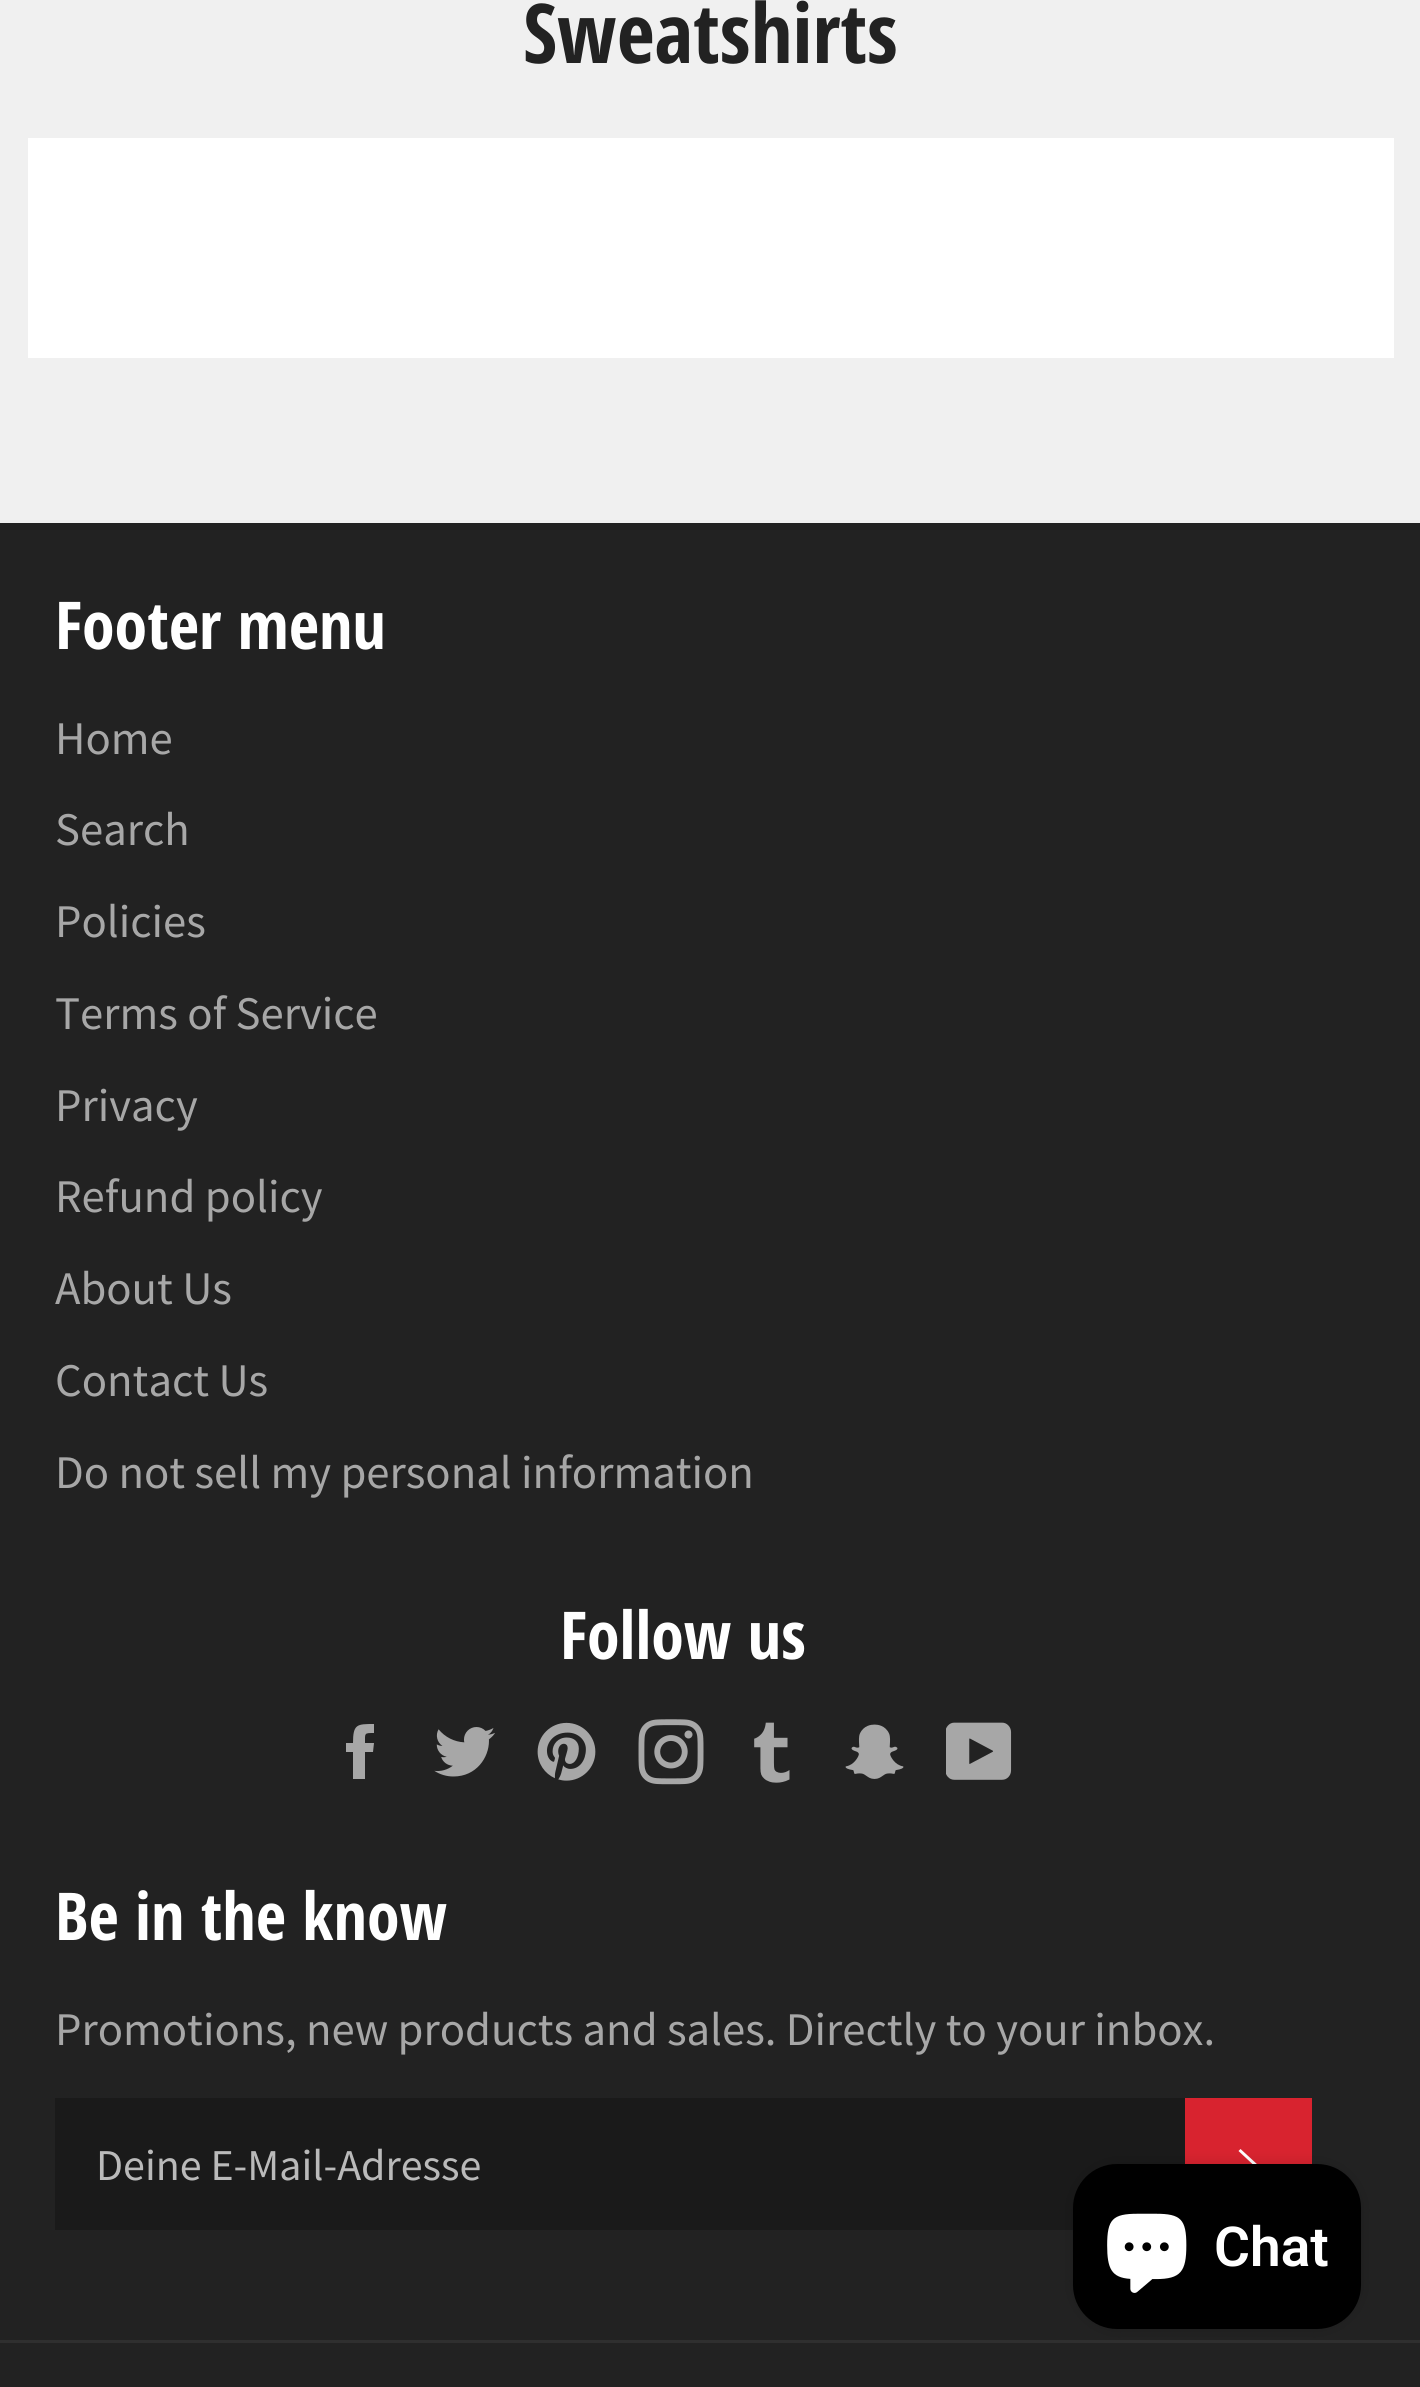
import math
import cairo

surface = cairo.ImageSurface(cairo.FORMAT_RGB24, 1420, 2387)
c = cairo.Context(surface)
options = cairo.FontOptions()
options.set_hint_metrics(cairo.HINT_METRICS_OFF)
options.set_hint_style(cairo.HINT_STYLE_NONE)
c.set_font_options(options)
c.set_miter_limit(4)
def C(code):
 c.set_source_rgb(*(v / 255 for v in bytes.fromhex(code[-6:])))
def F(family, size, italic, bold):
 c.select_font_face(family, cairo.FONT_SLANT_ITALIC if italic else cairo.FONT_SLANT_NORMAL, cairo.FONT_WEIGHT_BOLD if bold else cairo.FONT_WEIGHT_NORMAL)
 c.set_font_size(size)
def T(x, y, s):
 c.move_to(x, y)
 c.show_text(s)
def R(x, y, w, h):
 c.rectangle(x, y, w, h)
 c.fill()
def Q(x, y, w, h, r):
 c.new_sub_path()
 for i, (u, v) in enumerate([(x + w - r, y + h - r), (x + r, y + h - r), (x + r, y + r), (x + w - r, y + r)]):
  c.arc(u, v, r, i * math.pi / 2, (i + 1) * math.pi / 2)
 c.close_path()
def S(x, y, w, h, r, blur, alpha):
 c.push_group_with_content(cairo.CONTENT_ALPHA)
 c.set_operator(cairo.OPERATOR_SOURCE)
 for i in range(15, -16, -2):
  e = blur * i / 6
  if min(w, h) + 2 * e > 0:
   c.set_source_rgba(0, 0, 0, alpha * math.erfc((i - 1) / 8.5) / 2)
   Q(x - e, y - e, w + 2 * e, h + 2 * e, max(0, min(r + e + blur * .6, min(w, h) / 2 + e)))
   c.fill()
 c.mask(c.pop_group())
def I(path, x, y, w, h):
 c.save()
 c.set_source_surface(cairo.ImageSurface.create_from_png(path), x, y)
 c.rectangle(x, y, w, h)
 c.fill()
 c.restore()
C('f0f0f0')
c.paint()
F('Open Sans Condensed',82.5,0,1)
C('222222')
T(523,63,'Sweatshirts')
C('ffffff')
R(28,138,1366,220)
C('222222')
R(0,523,1420,1864)
F('Open Sans Condensed',66,0,1)
C('ffffff')
T(55,649,'Footer menu')
F('Source Sans Pro',46.75,0,0)
C('a7a7a7')
T(55,754,'Home')
T(55,845,'Search')
T(55,937,'Policies')
T(55,1029,'Terms of Service')
T(55,1121,'Privacy')
T(55,1212,'Refund policy')
T(55,1304,'About Us')
T(55,1396,'Contact Us')
T(55,1488,'Do not sell my personal information')
F('Open Sans Condensed',66,0,1)
C('ffffff')
T(560,1659,'Follow us')
C('a7a7a7')
c.new_path()
c.move_to(365,1743)
c.curve_to(365,1733,364,1733,374,1733)
c.line_to(374,1724)
c.curve_to(357,1724,353,1724,353,1743)
c.line_to(346,1743)
c.line_to(346,1752)
c.line_to(353,1752)
c.line_to(353,1779)
c.line_to(365,1779)
c.line_to(365,1752)
c.line_to(373,1752)
c.line_to(374,1743)
c.close_path()
c.fill()
I('1.png',434,1727,61,50)
I('2.png',537,1722,59,59)
I('3.png',638,1719,66,66)
I('4.png',754,1722,36,61)
I('5.png',845,1724,59,55)
I('6.png',946,1722,66,58)
C('ffffff')
T(55,1940,'Be in the know')
F('Source Sans Pro',46.75,0,0)
C('a7a7a7')
T(55,2045,'Promotions, new products and sales. Directly to your inbox.')
C('1a1a1a')
R(55,2098,1130,132)
F('Source Sans Pro',44,0,0)
C('bababa')
T(96,2180,'Deine E-Mail-Adresse')
C('d8232f')
R(1185,2098,127,66)
C('ffffff')
c.new_path()
c.move_to(1238.5,2151)
c.line_to(1240.5,2149)
c.line_to(1258.5,2165.5)
c.line_to(1240.5,2182.5)
c.line_to(1238.5,2180.5)
c.line_to(1254,2165.5)
c.close_path()
c.fill()
C('2f2f2f')
R(0,2340,1420,3)
C('000000')
S(1073,2164,288,165,44,7,.15)
C('000000')
Q(1073,2164,288,165,44)
c.fill()
I('7.png',1107,2213,80,80)
F('Roboto SemiBold',55,0,0)
C('ffffff')
T(1214,2266,'Chat')
surface.write_to_png('o.png')
